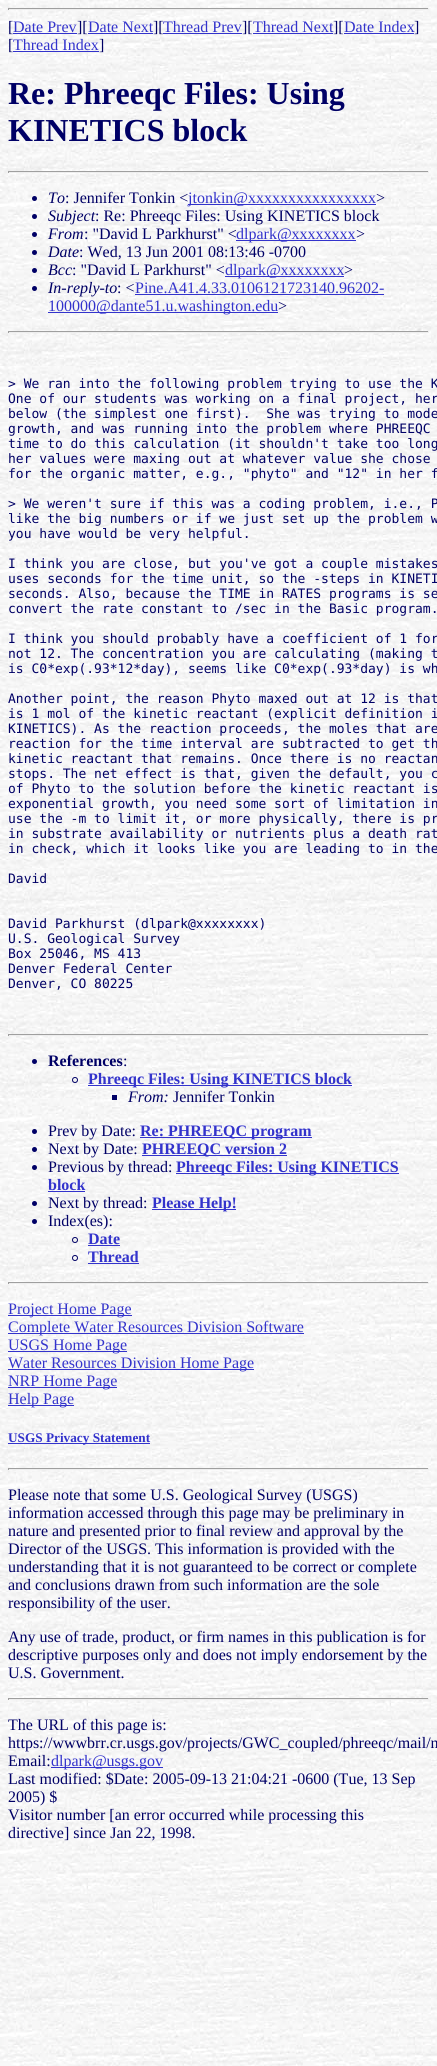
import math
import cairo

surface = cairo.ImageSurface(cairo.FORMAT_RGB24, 437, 2066)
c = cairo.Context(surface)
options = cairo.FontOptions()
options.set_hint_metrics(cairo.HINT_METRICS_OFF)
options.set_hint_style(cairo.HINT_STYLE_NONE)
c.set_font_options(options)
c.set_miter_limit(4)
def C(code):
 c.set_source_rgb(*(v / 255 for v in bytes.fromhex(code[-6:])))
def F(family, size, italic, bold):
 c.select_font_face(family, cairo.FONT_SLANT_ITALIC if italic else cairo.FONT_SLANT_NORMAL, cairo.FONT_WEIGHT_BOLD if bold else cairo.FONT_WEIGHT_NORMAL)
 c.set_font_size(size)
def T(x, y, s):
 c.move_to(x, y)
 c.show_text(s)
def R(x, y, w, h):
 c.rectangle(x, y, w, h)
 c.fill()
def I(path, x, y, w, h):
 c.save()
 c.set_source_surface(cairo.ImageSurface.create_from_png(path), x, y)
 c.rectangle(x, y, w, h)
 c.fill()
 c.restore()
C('ffffff')
c.paint()
I('1.png',0,0,437,2066)
C('9f9f9f')
R(8,8,421,1)
C('eeeeee')
R(428,8,1,2)
R(8,9,421,1)
C('9f9f9f')
R(8,8,1,2)
F('Liberation Serif',16,0,0)
C('000066')
T(8,32,'[')
C('3333cc')
T(13,32,'Date Prev')
R(13,33,64,1)
C('000066')
T(77,32,'][')
C('3333cc')
T(88,32,'Date Next')
R(88,33,65,1)
C('000066')
T(153,32,'][')
C('3333cc')
T(163,32,'Thread Prev')
R(163,33,79,1)
C('000066')
T(242,32,'][')
C('3333cc')
T(253,32,'Thread Next')
R(253,33,80,1)
C('000066')
T(333,32,'][')
C('3333cc')
T(344,32,'Date Index')
R(344,33,70,1)
C('000066')
T(414,32,']')
T(8,50,'[')
C('3333cc')
T(13,50,'Thread Index')
R(13,51,86,1)
C('000066')
T(99,50,']')
F('Liberation Serif',32,0,1)
T(8,104,'Re: Phreeqc Files: Using')
T(8,141,'KINETICS block')
C('9f9f9f')
R(8,171,421,1)
C('eeeeee')
R(428,171,1,2)
R(8,172,421,1)
C('9f9f9f')
R(8,171,1,2)
C('000066')
c.new_path()
c.arc(34.5,198.5,2.5,0,2 * math.pi)
c.fill()
F('Liberation Serif',16,1,0)
T(48,203,'To')
F('Liberation Serif',16,0,0)
T(65,203,': Jennifer Tonkin <')
C('3333cc')
R(188,204,188,1)
T(188,203,'jtonkin@xxxxxxxxxxxxxxxx')
C('000066')
T(376,203,'>')
c.new_path()
c.arc(34.5,216.5,2.5,0,2 * math.pi)
c.fill()
F('Liberation Serif',16,1,0)
T(48,221,'Subject')
F('Liberation Serif',16,0,0)
T(95,221,': Re: Phreeqc Files: Using KINETICS block')
c.new_path()
c.arc(34.5,234.5,2.5,0,2 * math.pi)
c.fill()
F('Liberation Serif',16,1,0)
T(48,239,'From')
F('Liberation Serif',16,0,0)
T(84,239,': "David L Parkhurst" <')
C('3333cc')
R(236,240,120,1)
T(236,239,'dlpark@xxxxxxxx')
C('000066')
T(356,239,'>')
c.new_path()
c.arc(34.5,252.5,2.5,0,2 * math.pi)
c.fill()
F('Liberation Serif',16,1,0)
T(48,257,'Date')
F('Liberation Serif',16,0,0)
T(79,257,': Wed, 13 Jun 2001 08:13:46 -0700')
c.new_path()
c.arc(34.5,270.5,2.5,0,2 * math.pi)
c.fill()
F('Liberation Serif',16,1,0)
T(48,275,'Bcc')
F('Liberation Serif',16,0,0)
T(72,275,': "David L Parkhurst" <')
C('3333cc')
R(225,276,119,1)
T(225,275,'dlpark@xxxxxxxx')
C('000066')
T(344,275,'>')
c.new_path()
c.arc(34.5,288.5,2.5,0,2 * math.pi)
c.fill()
F('Liberation Serif',16,1,0)
T(48,293,'In-reply-to')
F('Liberation Serif',16,0,0)
T(117,293,': <')
C('3333cc')
T(135,293,'Pine.A41.4.33.0106121723140.96202-')
R(135,294,249,1)
R(48,312,230,1)
T(48,311,'100000@dante51.u.washington.edu')
C('000066')
T(278,311,'>')
C('9f9f9f')
R(8,331,421,1)
C('eeeeee')
R(428,331,1,2)
R(8,332,421,1)
C('9f9f9f')
R(8,331,1,2)
F('DejaVu Sans Mono',13,0,0)
C('000066')
T(8,388,'> We ran into the following problem trying to use the K')
T(8,403,'One of our students was working on a final project, her')
T(8,418,'below (the simplest one first).  She was trying to mode')
T(8,433,'growth, and was running into the problem where PHREEQC')
T(8,448,'time to do this calculation (it shouldn\'t take too long')
T(8,463,'her values were maxing out at whatever value she chose')
T(8,478,'for the organic matter, e.g., "phyto" and "12" in her f')
T(8,508,'> We weren\'t sure if this was a coding problem, i.e., P')
T(8,523,'like the big numbers or if we just set up the problem w')
T(8,538,'you have would be very helpful.')
T(8,568,'I think you are close, but you\'ve got a couple mistakes')
T(8,583,'uses seconds for the time unit, so the -steps in KINETI')
T(8,598,'seconds. Also, because the TIME in RATES programs is se')
T(8,613,'convert the rate constant to /sec in the Basic program.')
T(8,643,'I think you should probably have a coefficient of 1 for')
T(8,658,'not 12. The concentration you are calculating (making t')
T(8,673,'is C0*exp(.93*12*day), seems like C0*exp(.93*day) is wh')
T(8,703,'Another point, the reason Phyto maxed out at 12 is that')
T(8,718,'is 1 mol of the kinetic reactant (explicit definition i')
T(8,733,'KINETICS). As the reaction proceeds, the moles that are')
T(8,748,'reaction for the time interval are subtracted to get th')
T(8,763,'kinetic reactant that remains. Once there is no reactan')
T(8,778,'stops. The net effect is that, given the default, you c')
T(8,793,'of Phyto to the solution before the kinetic reactant is')
T(8,808,'exponential growth, you need some sort of limitation in')
T(8,823,'use the -m to limit it, or more physically, there is pr')
T(8,838,'in substrate availability or nutrients plus a death rat')
T(8,853,'in check, which it looks like you are leading to in the')
T(8,883,'David')
T(8,928,'David Parkhurst (dlpark@xxxxxxxx)')
T(8,943,'U.S. Geological Survey')
T(8,958,'Box 25046, MS 413')
T(8,973,'Denver Federal Center')
T(8,988,'Denver, CO 80225')
C('9f9f9f')
R(8,1034,421,1)
C('eeeeee')
R(428,1034,1,2)
R(8,1035,421,1)
C('9f9f9f')
R(8,1034,1,2)
C('000066')
c.new_path()
c.arc(34.5,1061.5,2.5,0,2 * math.pi)
c.fill()
F('Liberation Serif',16,0,1)
T(48,1066,'References')
F('Liberation Serif',16,0,0)
T(123,1066,':')
c.new_path()
c.arc(75,1080,2.5,0,2 * math.pi)
c.set_line_width(1)
c.stroke()
C('3333cc')
R(88,1085,264,1)
F('Liberation Serif',16,0,1)
T(88,1084,'Phreeqc Files: Using KINETICS block')
C('000066')
R(112,1095,5,5)
F('Liberation Serif',16,1,0)
T(128,1102,'From:')
F('Liberation Serif',16,0,0)
T(173,1102,'Jennifer Tonkin')
c.new_path()
c.arc(34.5,1131.5,2.5,0,2 * math.pi)
c.fill()
T(48,1136,'Prev by Date:')
C('3333cc')
R(140,1137,172,1)
F('Liberation Serif',16,0,1)
T(140,1136,'Re: PHREEQC program')
C('000066')
c.new_path()
c.arc(34.5,1149.5,2.5,0,2 * math.pi)
c.fill()
F('Liberation Serif',16,0,0)
T(48,1154,'Next by Date:')
C('3333cc')
R(142,1155,145,1)
F('Liberation Serif',16,0,1)
T(142,1154,'PHREEQC version 2')
C('000066')
c.new_path()
c.arc(34.5,1167.5,2.5,0,2 * math.pi)
c.fill()
F('Liberation Serif',16,0,0)
T(48,1172,'Previous by thread:')
C('3333cc')
R(176,1173,223,1)
F('Liberation Serif',16,0,1)
T(176,1172,'Phreeqc Files: Using KINETICS')
T(48,1190,'block')
R(48,1191,37,1)
C('000066')
c.new_path()
c.arc(34.5,1203.5,2.5,0,2 * math.pi)
c.fill()
F('Liberation Serif',16,0,0)
T(48,1208,'Next by thread:')
C('3333cc')
R(152,1209,84,1)
F('Liberation Serif',16,0,1)
T(152,1208,'Please Help!')
C('000066')
c.new_path()
c.arc(34.5,1221.5,2.5,0,2 * math.pi)
c.fill()
F('Liberation Serif',16,0,0)
T(48,1226,'Index(es):')
c.new_path()
c.arc(75,1240,2.5,0,2 * math.pi)
c.stroke()
F('Liberation Serif',16,0,1)
C('3333cc')
T(88,1244,'Date')
R(88,1245,32,1)
c.new_path()
c.arc(75,1258,2.5,0,2 * math.pi)
C('000066')
c.stroke()
C('3333cc')
T(88,1262,'Thread')
R(88,1263,51,1)
C('9f9f9f')
R(8,1282,421,1)
C('eeeeee')
R(428,1282,1,2)
R(8,1283,421,1)
C('9f9f9f')
R(8,1282,1,2)
C('3333cc')
R(8,1315,124,1)
F('Liberation Serif',16,0,0)
T(8,1314,'Project Home Page')
R(8,1333,296,1)
T(8,1332,'Complete Water Resources Division Software')
R(8,1351,119,1)
T(8,1350,'USGS Home Page')
R(8,1369,246,1)
T(8,1368,'Water Resources Division Home Page')
R(8,1387,109,1)
T(8,1386,'NRP Home Page')
R(8,1405,66,1)
T(8,1404,'Help Page')
R(8,1443,142,1)
F('Liberation Serif',13.25,0,1)
T(8,1442,'USGS Privacy Statement')
C('9f9f9f')
R(8,1468,421,1)
C('eeeeee')
R(428,1468,1,2)
R(8,1469,421,1)
C('9f9f9f')
R(8,1468,1,2)
F('Liberation Serif',16,0,0)
C('000066')
T(8,1500,'Please note that some U.S. Geological Survey (USGS)')
T(8,1518,'information accessed through this page may be preliminary in')
T(8,1536,'nature and presented prior to final review and approval by the')
T(8,1554,'Director of the USGS. This information is provided with the')
T(8,1572,'understanding that it is not guaranteed to be correct or complete')
T(8,1590,'and conclusions drawn from such information are the sole')
T(8,1608,'responsibility of the user.')
T(8,1642,'Any use of trade, product, or firm names in this publication is for')
T(8,1660,'descriptive purposes only and does not imply endorsement by the')
T(8,1678,'U.S. Government.')
C('9f9f9f')
R(8,1698,421,1)
C('eeeeee')
R(428,1698,1,2)
R(8,1699,421,1)
C('9f9f9f')
R(8,1698,1,2)
C('000066')
T(8,1730,'The URL of this page is:')
T(8,1748,'https://wwwbrr.cr.usgs.gov/projects/GWC_coupled/phreeqc/mail/m')
T(8,1766,'Email:')
C('3333cc')
R(51,1767,112,1)
T(51,1766,'dlpark@usgs.gov')
C('000066')
T(8,1784,'Last modified: $Date: 2005-09-13 21:04:21 -0600 (Tue, 13 Sep')
T(8,1802,'2005) $')
T(8,1820,'Visitor number [an error occurred while processing this')
T(8,1838,'directive] since Jan 22, 1998.')
surface.write_to_png('o.png')
